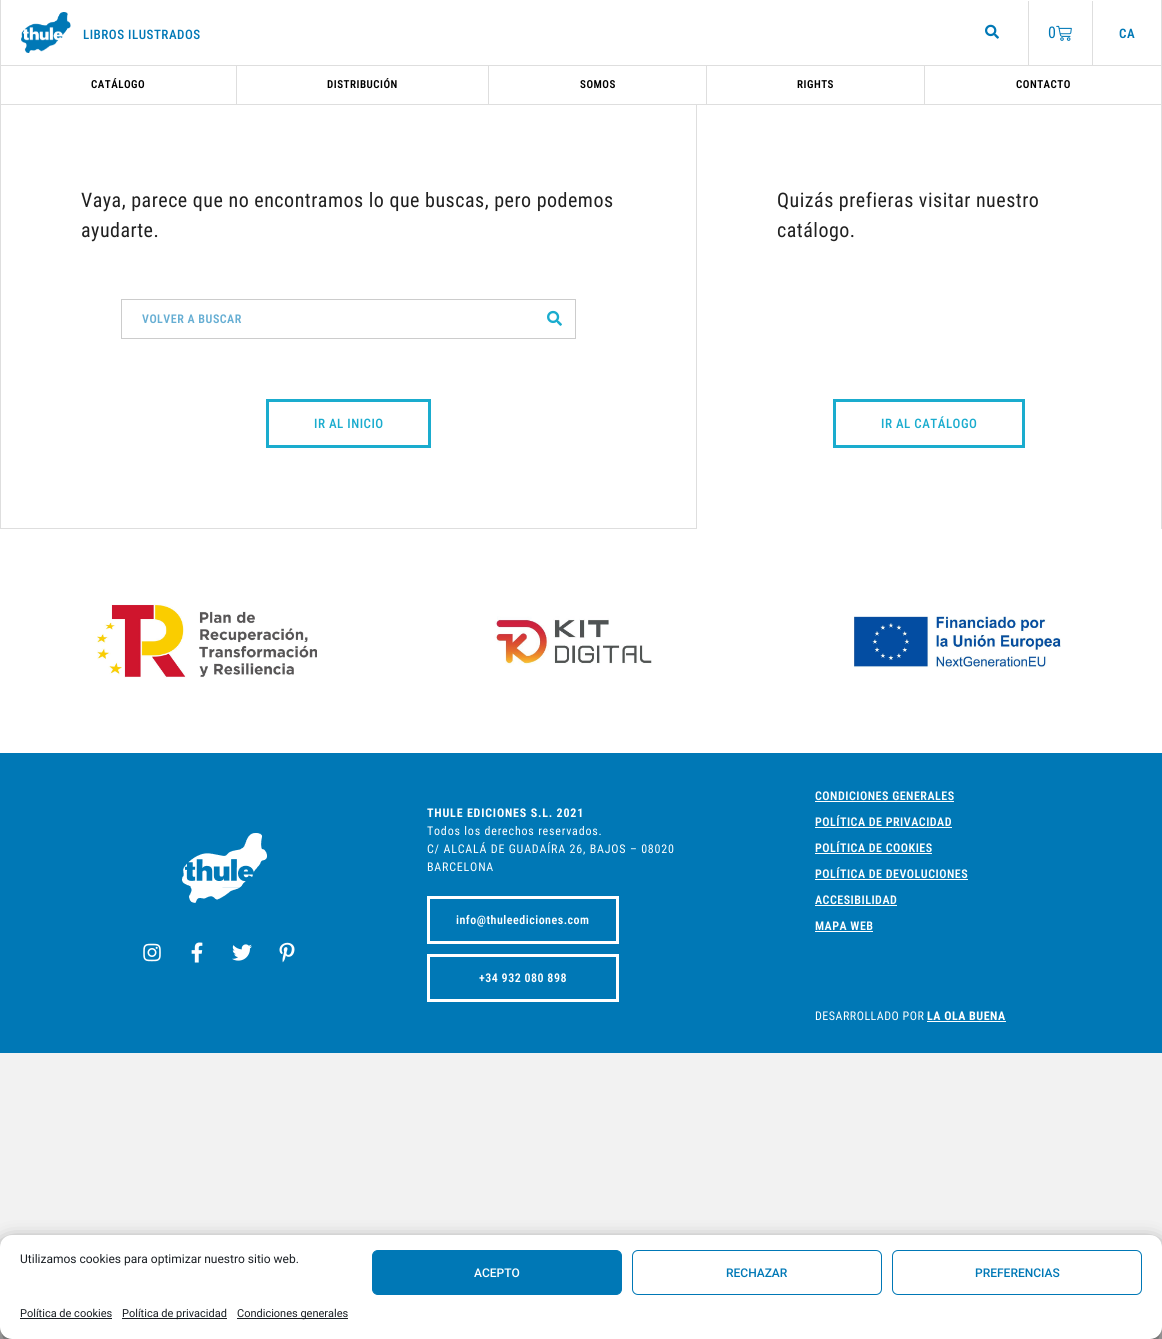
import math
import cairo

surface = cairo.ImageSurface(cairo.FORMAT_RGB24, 1162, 1339)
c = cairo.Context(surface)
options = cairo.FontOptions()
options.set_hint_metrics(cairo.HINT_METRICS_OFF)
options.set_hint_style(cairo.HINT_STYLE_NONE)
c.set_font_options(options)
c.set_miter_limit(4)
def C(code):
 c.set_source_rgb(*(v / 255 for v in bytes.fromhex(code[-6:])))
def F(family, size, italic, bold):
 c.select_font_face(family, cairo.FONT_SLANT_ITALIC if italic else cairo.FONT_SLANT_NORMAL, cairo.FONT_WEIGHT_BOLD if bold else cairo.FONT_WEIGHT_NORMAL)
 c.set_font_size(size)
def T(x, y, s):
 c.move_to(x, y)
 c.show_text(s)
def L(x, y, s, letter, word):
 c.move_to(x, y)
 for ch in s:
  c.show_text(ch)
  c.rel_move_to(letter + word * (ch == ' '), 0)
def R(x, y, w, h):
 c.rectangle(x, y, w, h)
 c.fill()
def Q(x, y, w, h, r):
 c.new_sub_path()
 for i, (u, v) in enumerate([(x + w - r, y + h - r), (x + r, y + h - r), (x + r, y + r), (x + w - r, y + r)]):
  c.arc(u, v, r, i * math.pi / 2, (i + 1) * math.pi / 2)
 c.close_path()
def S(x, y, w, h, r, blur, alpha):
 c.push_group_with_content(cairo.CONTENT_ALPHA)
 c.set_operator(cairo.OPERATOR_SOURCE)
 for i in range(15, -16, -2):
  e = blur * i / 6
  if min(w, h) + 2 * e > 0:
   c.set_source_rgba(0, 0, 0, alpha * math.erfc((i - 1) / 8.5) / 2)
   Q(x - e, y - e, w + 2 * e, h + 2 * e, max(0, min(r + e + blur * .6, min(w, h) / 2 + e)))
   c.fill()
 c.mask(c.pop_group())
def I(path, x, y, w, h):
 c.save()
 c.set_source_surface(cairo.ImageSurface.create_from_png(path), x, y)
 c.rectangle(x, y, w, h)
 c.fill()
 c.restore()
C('f2f2f2')
c.paint()
C('ffffff')
R(1,0,1160,65)
I('1.png',21,12,50,41)
F('Roboto Condensed Medium',13,0,0)
C('0078b6')
L(83,39,'LIBROS ILUSTRADOS',.5,0)
I('2.png',985,24,14,15)
C('dedede')
R(1092,1,1,64)
R(1028,1,1,64)
F('Roboto Condensed',16,0,0)
C('0078b6')
L(1048,38,'0',.5,0)
I('3.png',1056,25,16,16)
F('Roboto Condensed SemiBold',13,0,0)
L(1119,38,'CA',.5,0)
C('ffffff')
R(1,66,1160,38)
C('dedede')
R(0,65,1161,1)
R(0,104,1161,1)
R(0,0,1,105)
F('Roboto Condensed SemiBold',11,0,0)
C('000000')
L(91,88,'CATÁLOGO',.5,0)
C('dedede')
R(236,65,1,40)
C('000000')
L(327,88,'DISTRIBUCIÓN',.5,0)
C('dedede')
R(488,65,1,40)
C('000000')
L(580,88,'SOMOS',.5,0)
C('dedede')
R(706,65,1,40)
C('000000')
L(797,88,'RIGHTS',.5,0)
C('dedede')
R(924,65,1,40)
C('000000')
L(1016,88,'CONTACTO',.5,0)
C('ffffff')
R(1,105,695,423)
C('dedede')
R(696,105,1,424)
R(0,528,697,1)
R(0,105,1,424)
F('Roboto Condensed',20,0,0)
C('202020')
L(81,207,'Vaya, parece que no encontramos lo que buscas, pero podemos',.5,0)
L(81,237,'ayudarte.',.5,0)
c.rectangle(121.5,299.5,454,39)
C('cccccc')
c.set_line_width(1)
c.stroke()
F('Roboto Condensed SemiBold',12,0,0)
C('66aed3')
L(142,323,'VOLVER A BUSCAR',.5,0)
I('4.png',547,310,15,16)
c.rectangle(267.5,400.5,162,46)
C('1aacce')
c.set_line_width(3)
c.stroke()
F('Roboto Condensed Medium',13,0,0)
L(314,428,'IR AL INICIO',.5,0)
C('ffffff')
R(697,105,464,424)
C('dedede')
R(1161,0,1,529)
F('Roboto Condensed',20,0,0)
C('202020')
L(777,207,'Quizás prefieras visitar nuestro',.5,0)
L(777,237,'catálogo.',.5,0)
c.rectangle(834.5,400.5,189,46)
C('1aacce')
c.stroke()
F('Roboto Condensed Medium',13,0,0)
L(881,428,'IR AL CATÁLOGO',.5,0)
C('ffffff')
R(0,529,1162,224)
I('5.png',97,604,220,74)
I('6.png',494,616,158,49)
I('7.png',854,616,207,52)
C('0078b6')
R(0,753,1162,300)
I('8.png',182,833,85,70)
I('9.png',143,943,18,19)
I('10.png',191,942,12,21)
I('11.png',232,944,20,17)
I('12.png',279,942,16,21)
F('Roboto Condensed',12,0,1)
C('ffffff')
L(427,817,'THULE EDICIONES S.L. 2021',.8,0)
F('Roboto Condensed',12,0,0)
L(427,835,'Todos los derechos reservados.',.8,0)
L(427,853,'C/ ALCALÁ DE GUADAÍRA 26, BAJOS – 08020',.8,0)
L(427,871,'BARCELONA',.8,0)
c.rectangle(428.5,897.5,189,45)
c.stroke()
F('Roboto Condensed SemiBold',12,0,0)
L(456,924,'info@thuleediciones.com',.5,0)
c.rectangle(428.5,955.5,189,45)
c.stroke()
L(479,982,'+34 932 080 898',.5,0)
L(815,800,'CONDICIONES GENERALES',.5,0)
R(815,801,139,1)
L(815,826,'POLÍTICA DE PRIVACIDAD',.5,0)
R(815,827,137,1)
L(815,852,'POLÍTICA DE COOKIES',.5,0)
R(815,853,117,1)
L(815,878,'POLÍTICA DE DEVOLUCIONES',.5,0)
R(815,879,153,1)
L(815,904,'ACCESIBILIDAD',.5,0)
R(815,905,82,1)
L(815,930,'MAPA WEB',.5,0)
R(815,931,58,1)
F('Roboto Condensed',12,0,0)
L(815,1020,'DESARROLLADO POR',.5,0)
F('Roboto Condensed',12,0,1)
L(927,1020,'LA OLA BUENA',.5,0)
R(927,1021,79,1)
C('000000')
S(0,1245,1162,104,12,10,.8)
C('ffffff')
Q(0,1235,1162,104,12)
c.fill()
F('Roboto',12,0,0)
C('191e23')
T(20,1263,'Utilizamos cookies para optimizar nuestro sitio web.')
C('0078b6')
Q(372.5,1250.5,249,44,5.5)
c.fill_preserve()
c.set_line_width(1)
c.stroke()
F('Roboto Medium',12,0,0)
C('ffffff')
T(474,1277,'ACEPTO')
Q(632.5,1250.5,249,44,5.5)
C('0078b6')
c.stroke()
T(726,1277,'RECHAZAR')
Q(892.5,1250.5,249,44,5.5)
c.stroke()
T(975,1277,'PREFERENCIAS')
F('Roboto',11,0,0)
C('191e23')
T(20,1317,'Política de cookies')
R(20,1318,92,1)
R(122,1318,105,1)
T(122,1317,'Política de privacidad')
R(237,1318,111,1)
T(237,1317,'Condiciones generales')
surface.write_to_png('o.png')
